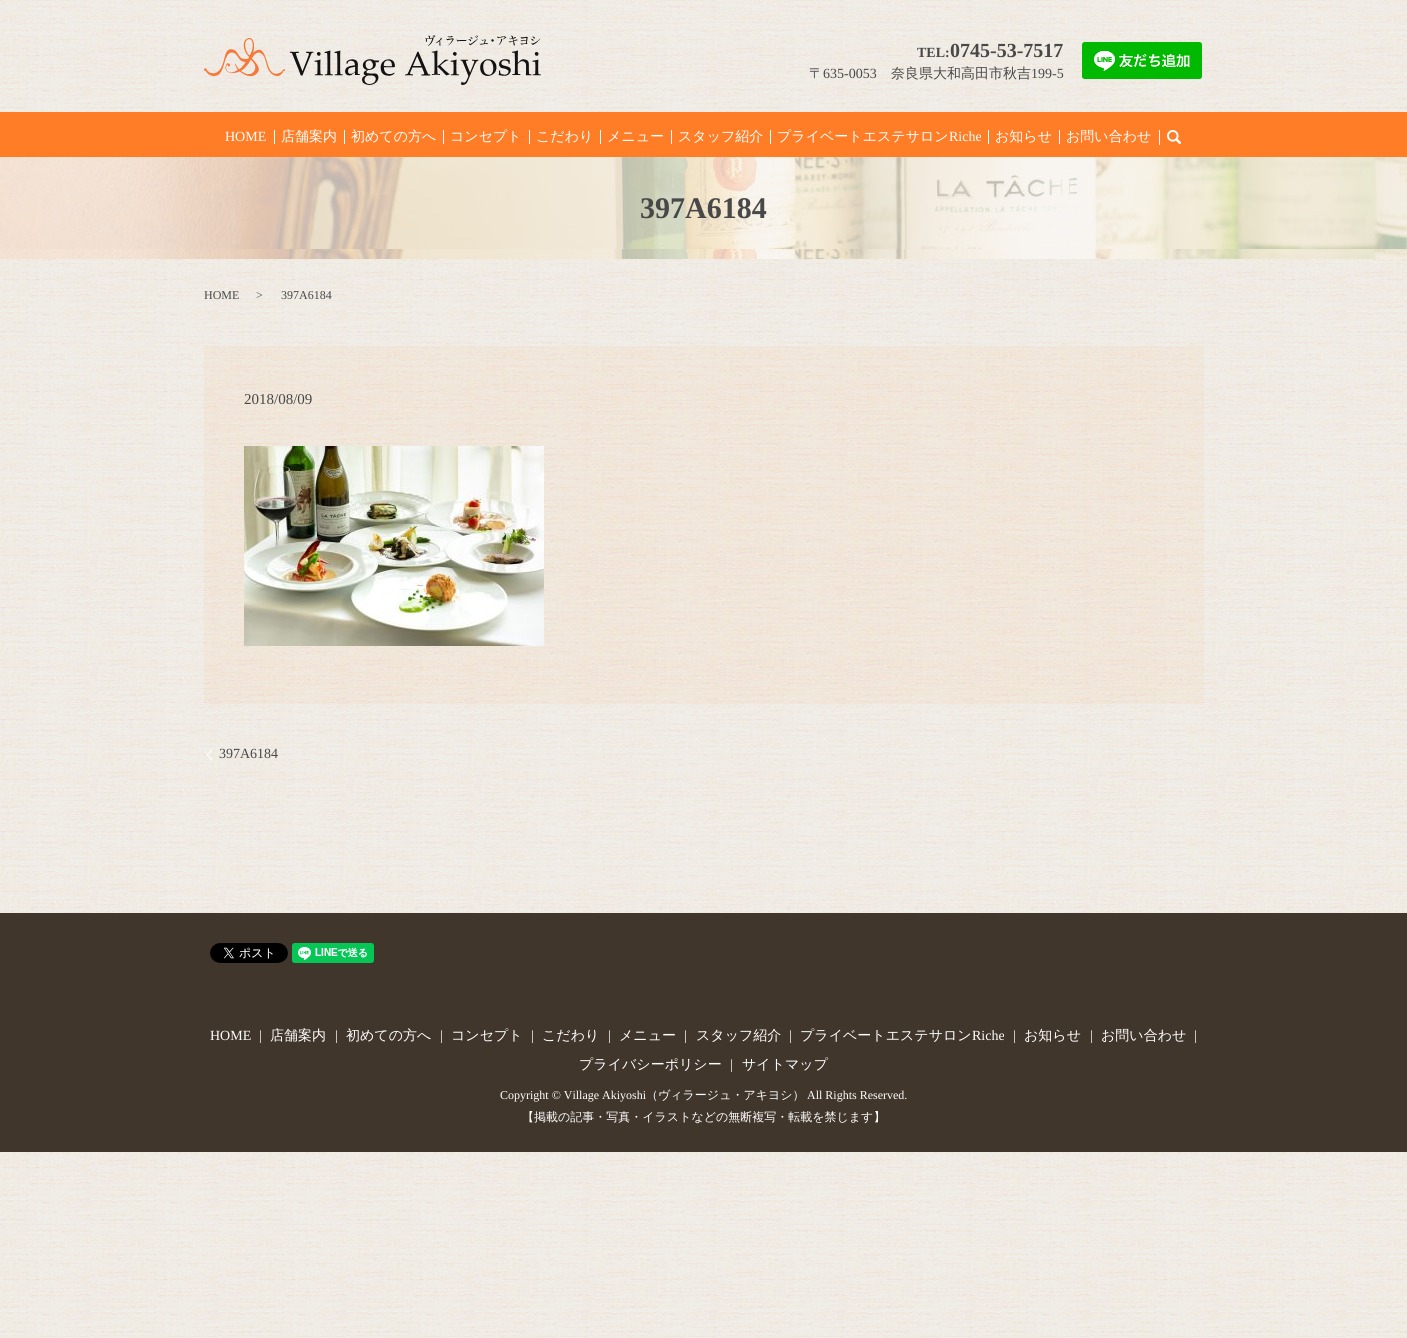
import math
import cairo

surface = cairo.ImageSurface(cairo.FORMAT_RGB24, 1407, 1338)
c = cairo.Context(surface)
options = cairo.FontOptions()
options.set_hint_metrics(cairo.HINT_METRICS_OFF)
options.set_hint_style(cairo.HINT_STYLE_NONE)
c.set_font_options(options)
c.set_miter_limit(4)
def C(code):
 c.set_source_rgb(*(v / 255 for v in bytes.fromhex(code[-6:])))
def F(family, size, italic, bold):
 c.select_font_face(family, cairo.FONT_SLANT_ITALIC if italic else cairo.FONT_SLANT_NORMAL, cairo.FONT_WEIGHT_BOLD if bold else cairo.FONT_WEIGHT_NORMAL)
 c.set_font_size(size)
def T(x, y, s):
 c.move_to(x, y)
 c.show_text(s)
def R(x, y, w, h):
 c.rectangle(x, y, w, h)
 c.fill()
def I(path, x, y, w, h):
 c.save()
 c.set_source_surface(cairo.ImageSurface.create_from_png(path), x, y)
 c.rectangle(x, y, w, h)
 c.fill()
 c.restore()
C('ffffff')
c.paint()
I('1.png',0,0,1407,1338)
I('2.png',204,35,337,50)
F('Liberation Serif',14,0,1)
C('484848')
T(917,57,'TEL:')
F('Liberation Serif',20,0,1)
T(950,57,'0745-53-7517')
F('WenQuanYi Zen Hei Medium',14,0,0)
T(809,78,'〒')
F('Liberation Serif',14,0,0)
T(823,78,'635-0053')
F('WenQuanYi Zen Hei Medium',14,0,0)
T(891,78,'奈良県大和高田市秋吉')
F('Liberation Serif',14,0,0)
T(1031,78,'199-5')
I('3.png',1082,42,120,37)
C('ff7d26')
R(0,112,1407,45)
C('ffffff')
T(225,141,'HOME')
R(274,130,1,14)
F('WenQuanYi Zen Hei Medium',14,0,0)
T(281,141,'店舗案内')
R(344,130,1,14)
T(351,141,'初めての方へ')
R(443,130,1,14)
T(450,141,'コンセプト')
R(529,130,1,14)
T(536,141,'こだわり')
R(600,130,1,14)
T(607,141,'メニュー')
R(671,130,1,14)
T(678,141,'スタッフ紹介')
R(770,130,1,14)
T(777,141,'プライベートエステサロン')
F('Liberation Serif',14,0,0)
T(949,141,'Riche')
R(988,130,1,14)
F('WenQuanYi Zen Hei Medium',14,0,0)
T(995,141,'お知らせ')
R(1059,130,1,14)
T(1066,141,'お問い合わせ')
I('4.png',1167,130,14,14)
R(1159,130,1,15)
I('5.png',0,157,1407,102)
F('Liberation Serif',30,0,1)
C('484848')
T(640,218,'397A6184')
F('Liberation Serif',12,0,0)
T(204,299,'HOME')
T(256,299,'>')
T(281,299,'397A6184')
c.set_source_rgba(1,0.49,0.149,0.05)
R(204,346,1000,358)
F('Liberation Serif',15,0,0)
C('484848')
T(244,404,'2018/08/09')
I('6.png',244,446,300,200)
C('ffffff')
c.new_path()
c.move_to(206.5,754.5)
c.line_to(212,749)
c.line_to(212.5,750)
c.line_to(207,755.5)
c.close_path()
c.fill()
F('Liberation Serif',14,0,0)
C('484848')
T(219,758,'397A6184')
C('ffffff')
c.new_path()
c.move_to(212,760.5)
c.line_to(206.5,755)
c.line_to(207,754)
c.line_to(212.5,759.5)
c.close_path()
c.fill()
C('41362c')
R(0,913,1407,239)
I('7.png',210,943,78,20)
I('8.png',292,943,82,20)
C('ffffff')
T(210,1040,'HOME')
T(259,1040,'|')
F('WenQuanYi Zen Hei Medium',14,0,0)
T(270,1040,'店舗案内')
F('Liberation Serif',14,0,0)
T(335,1040,'|')
F('WenQuanYi Zen Hei Medium',14,0,0)
T(346,1040,'初めての方へ')
F('Liberation Serif',14,0,0)
T(440,1040,'|')
F('WenQuanYi Zen Hei Medium',14,0,0)
T(451,1040,'コンセプト')
F('Liberation Serif',14,0,0)
T(531,1040,'|')
F('WenQuanYi Zen Hei Medium',14,0,0)
T(542,1040,'こだわり')
F('Liberation Serif',14,0,0)
T(684,1040,'|')
F('WenQuanYi Zen Hei Medium',14,0,0)
T(696,1040,'スタッフ紹介')
F('Liberation Serif',14,0,0)
T(789,1040,'|')
F('WenQuanYi Zen Hei Medium',14,0,0)
T(800,1040,'プライベートエステサロン')
F('Liberation Serif',14,0,0)
T(972,1040,'Riche')
T(1013,1040,'|')
F('WenQuanYi Zen Hei Medium',14,0,0)
T(1024,1040,'お知らせ')
F('Liberation Serif',14,0,0)
T(1090,1040,'|')
F('WenQuanYi Zen Hei Medium',14,0,0)
T(1101,1040,'お問い合わせ')
F('Liberation Serif',14,0,0)
T(1194,1040,'|')
F('WenQuanYi Zen Hei Medium',14,0,0)
T(579,1069,'プライバシーポリシー')
F('Liberation Serif',14,0,0)
T(608,1040,'|')
F('WenQuanYi Zen Hei Medium',14,0,0)
T(619,1040,'メニュー')
F('Liberation Serif',14,0,0)
T(730,1069,'|')
F('WenQuanYi Zen Hei Medium',14,0,0)
T(742,1069,'サイトマップ')
F('Liberation Serif',12,0,0)
T(500,1099,'Copyright © Village Akiyoshi')
F('WenQuanYi Zen Hei Medium',12,0,0)
T(646,1099,'（ヴィラージュ・アキヨシ）')
F('Liberation Serif',12,0,0)
T(807,1099,'All Rights Reserved.')
F('WenQuanYi Zen Hei Medium',12,0,0)
T(522,1121,'【掲載の記事・写真・イラストなどの無断複写・転載を禁じます】')
surface.write_to_png('o.png')
